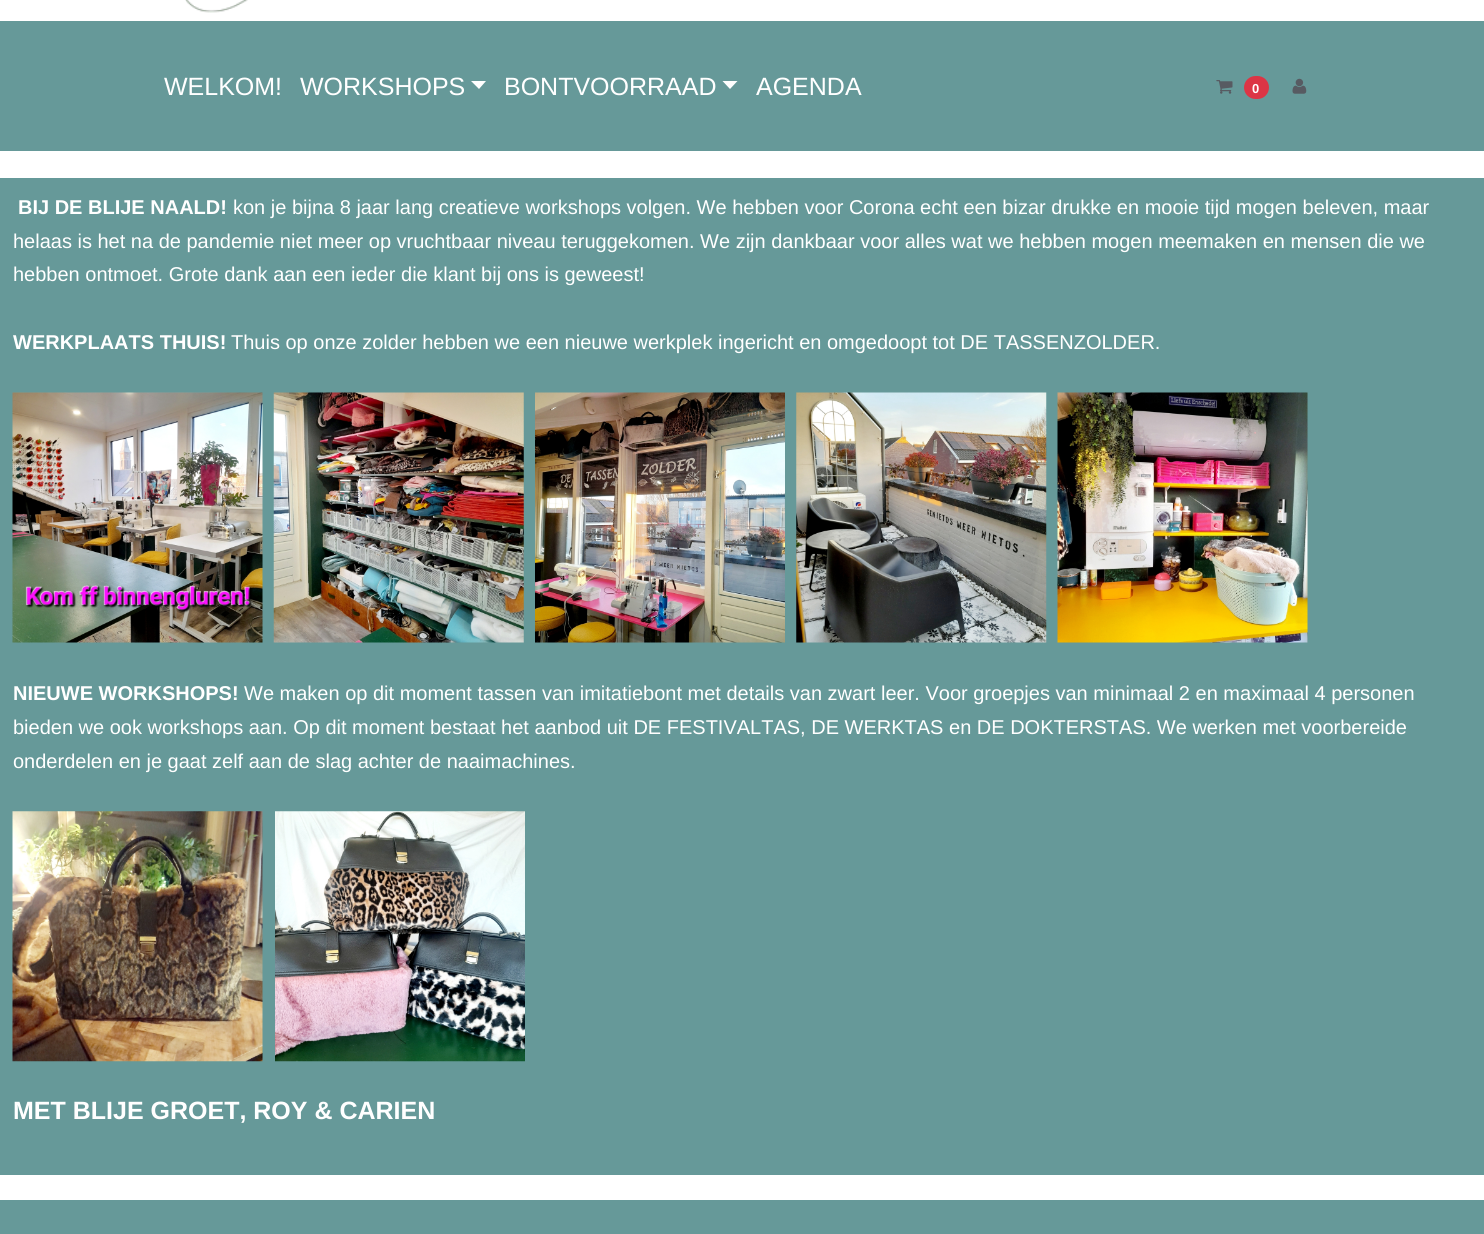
import math
import cairo

surface = cairo.ImageSurface(cairo.FORMAT_RGB24, 1484, 1234)
c = cairo.Context(surface)
options = cairo.FontOptions()
options.set_hint_metrics(cairo.HINT_METRICS_OFF)
options.set_hint_style(cairo.HINT_STYLE_NONE)
c.set_font_options(options)
c.set_miter_limit(4)
def C(code):
 c.set_source_rgb(*(v / 255 for v in bytes.fromhex(code[-6:])))
def F(family, size, italic, bold):
 c.select_font_face(family, cairo.FONT_SLANT_ITALIC if italic else cairo.FONT_SLANT_NORMAL, cairo.FONT_WEIGHT_BOLD if bold else cairo.FONT_WEIGHT_NORMAL)
 c.set_font_size(size)
def T(x, y, s):
 c.move_to(x, y)
 c.show_text(s)
def R(x, y, w, h):
 c.rectangle(x, y, w, h)
 c.fill()
def Q(x, y, w, h, r):
 c.new_sub_path()
 for i, (u, v) in enumerate([(x + w - r, y + h - r), (x + r, y + h - r), (x + r, y + r), (x + w - r, y + r)]):
  c.arc(u, v, r, i * math.pi / 2, (i + 1) * math.pi / 2)
 c.close_path()
def I(path, x, y, w, h):
 c.save()
 c.set_source_surface(cairo.ImageSurface.create_from_png(path), x, y)
 c.rectangle(x, y, w, h)
 c.fill()
 c.restore()
C('ffffff')
c.paint()
I('1.png',185,0,63,13)
C('669999')
R(0,21,1484,130)
F('Liberation Sans',25,0,0)
C('ffffff')
T(164,95,'WELKOM!')
T(300,95,'WORKSHOPS')
c.new_path()
c.move_to(471,81)
c.line_to(486,81)
c.line_to(479,89)
c.close_path()
c.fill()
T(504,95,'BONTVOORRAAD')
c.new_path()
c.move_to(722.5,81)
c.line_to(737.5,81)
c.line_to(730,89)
c.close_path()
c.fill()
T(756,95,'AGENDA')
I('2.png',1216,80,17,14)
C('dc3545')
Q(1244,76,25,23,11.5)
c.fill()
F('Liberation Sans',13,0,1)
C('ffffff')
T(1252,93,'0')
I('3.png',1292,78,15,16)
C('669999')
R(0,178,1484,997)
F('Liberation Sans',20,0,1)
C('ffffff')
T(18,214,'BIJ DE BLIJE NAALD!')
F('Liberation Sans',20,0,0)
T(233,214,'kon je bijna 8 jaar lang creatieve workshops volgen. We hebben voor Corona echt een bizar drukke en mooie tijd mogen beleven, maar')
T(13,248,'helaas is het na de pandemie niet meer op vruchtbaar niveau teruggekomen. We zijn dankbaar voor alles wat we hebben mogen meemaken en mensen die we')
T(13,281,'hebben ontmoet. Grote dank aan een ieder die klant bij ons is geweest!')
F('Liberation Sans',20,0,1)
T(13,349,'WERKPLAATS THUIS!')
F('Liberation Sans',20,0,0)
T(231,349,'Thuis op onze zolder hebben we een nieuwe werkplek ingericht en omgedoopt tot DE TASSENZOLDER.')
I('4.png',12,392,251,251)
I('5.png',273,392,251,251)
I('6.png',535,392,250,251)
I('7.png',796,392,251,251)
I('8.png',1057,392,251,251)
F('Liberation Sans',20,0,1)
T(13,700,'NIEUWE WORKSHOPS!')
F('Liberation Sans',20,0,0)
T(244,700,'We maken op dit moment tassen van imitatiebont met details van zwart leer. Voor groepjes van minimaal 2 en maximaal 4 personen')
T(13,734,'bieden we ook workshops aan. Op dit moment bestaat het aanbod uit DE FESTIVALTAS, DE WERKTAS en DE DOKTERSTAS. We werken met voorbereide')
T(13,768,'onderdelen en je gaat zelf aan de slag achter de naaimachines.')
I('9.png',12,811,251,251)
I('10.png',275,811,250,251)
F('Liberation Sans',25,0,1)
T(13,1119,'MET BLIJE GROET, ROY & CARIEN')
C('669999')
R(0,1200,1484,34)
surface.write_to_png('o.png')
